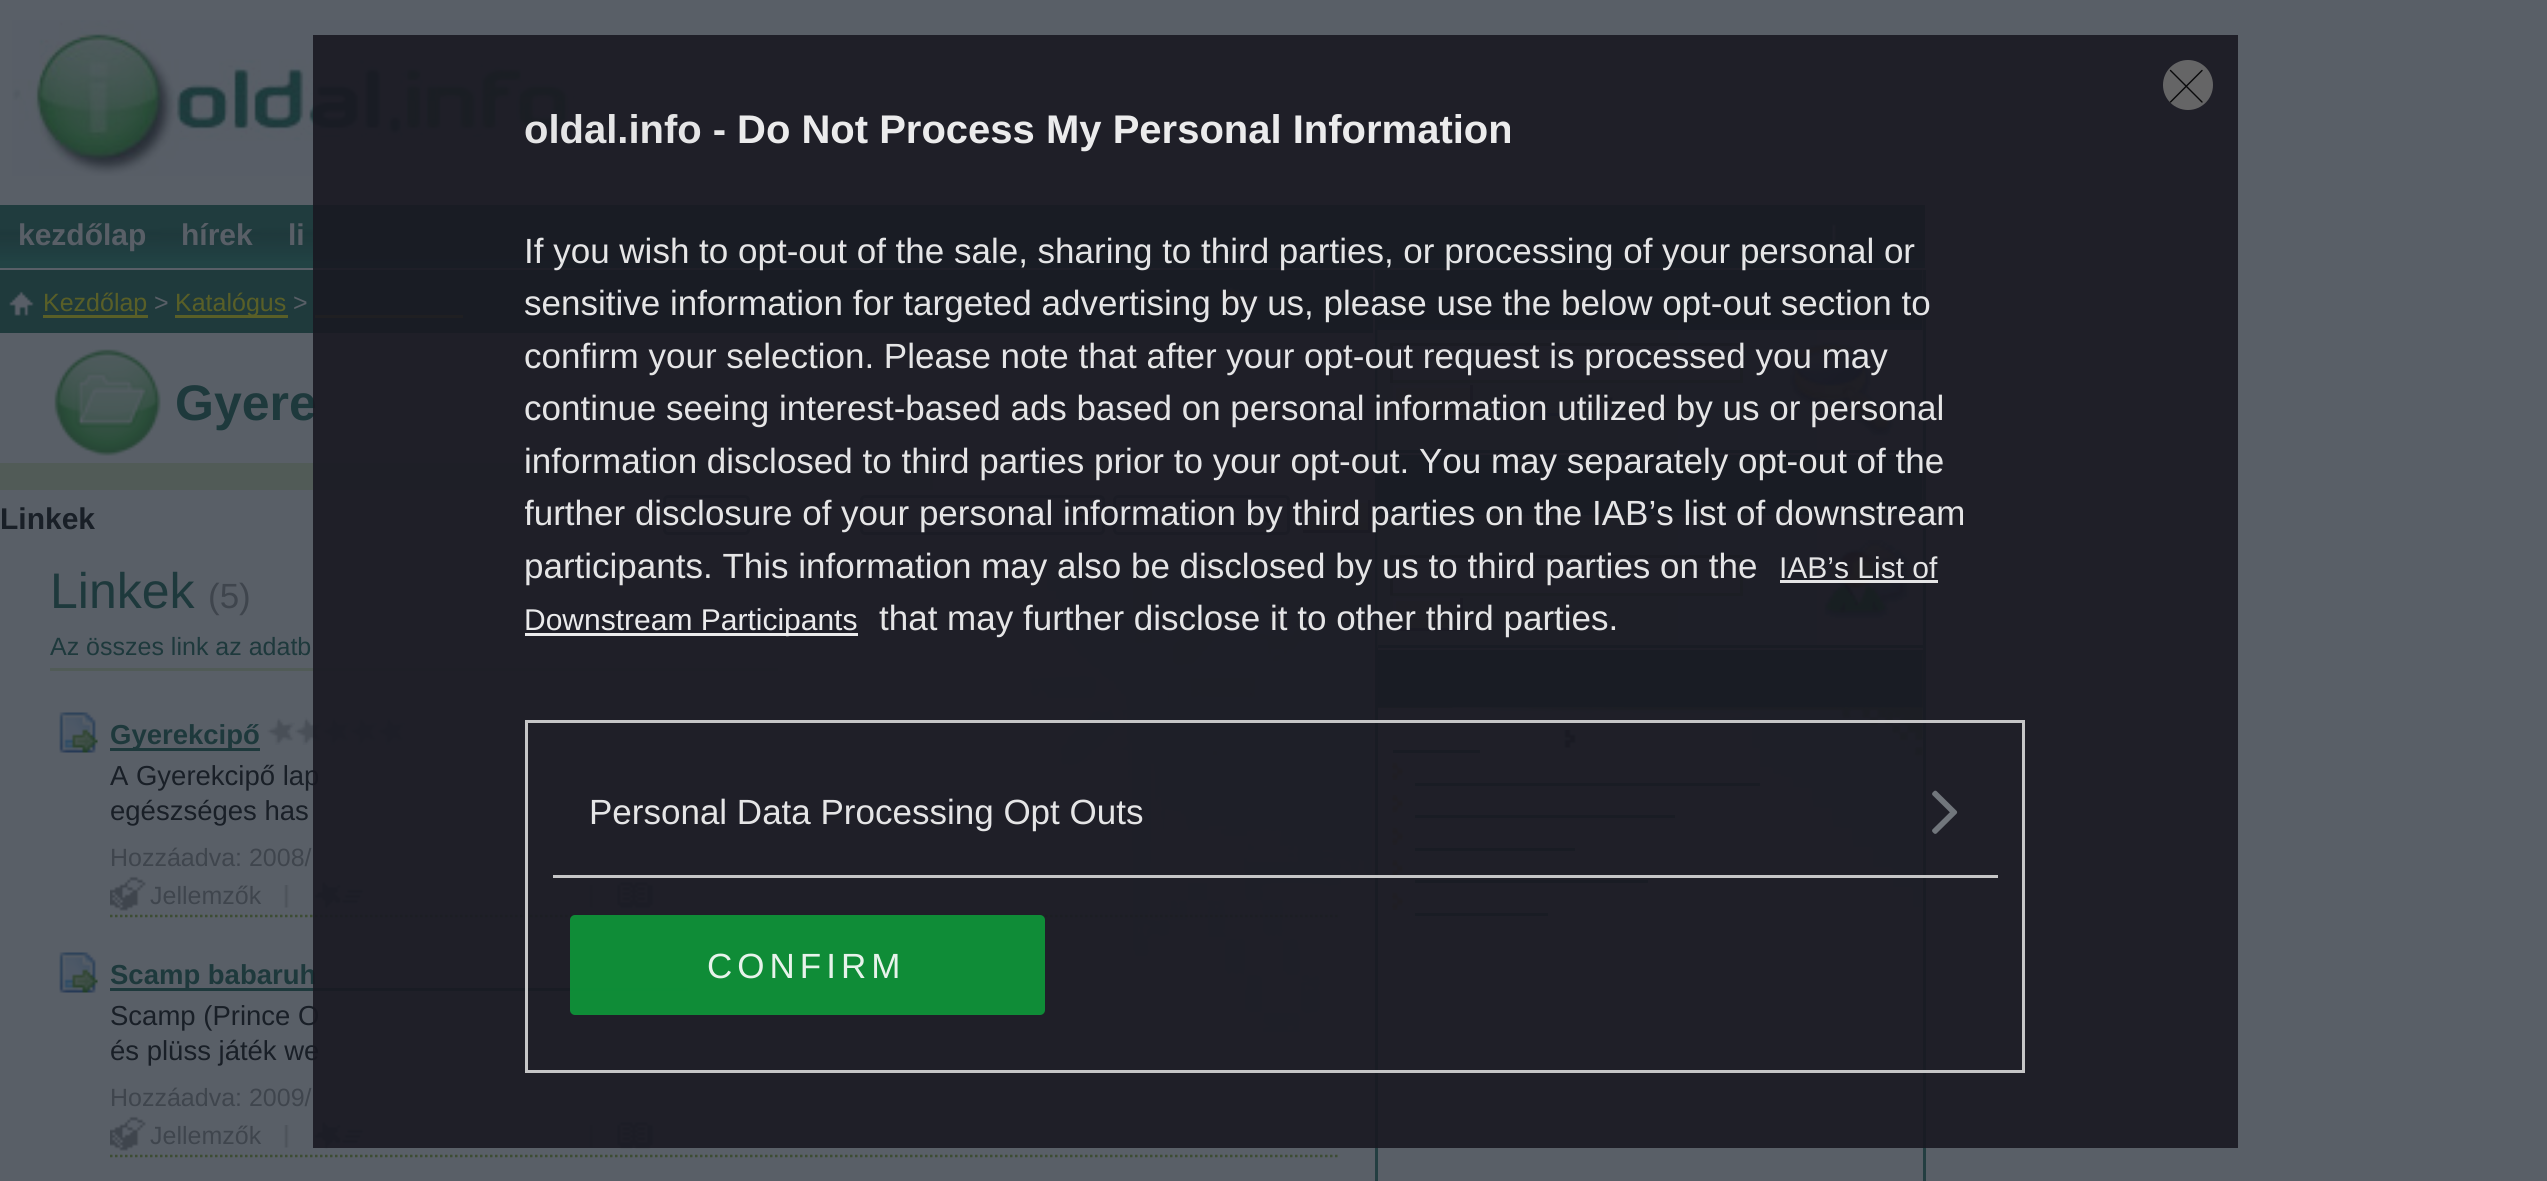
import math
import cairo

surface = cairo.ImageSurface(cairo.FORMAT_RGB24, 2547, 1181)
c = cairo.Context(surface)
options = cairo.FontOptions()
options.set_hint_metrics(cairo.HINT_METRICS_OFF)
options.set_hint_style(cairo.HINT_STYLE_NONE)
c.set_font_options(options)
c.set_miter_limit(4)
def C(code):
 c.set_source_rgb(*(v / 255 for v in bytes.fromhex(code[-6:])))
def F(family, size, italic, bold):
 c.select_font_face(family, cairo.FONT_SLANT_ITALIC if italic else cairo.FONT_SLANT_NORMAL, cairo.FONT_WEIGHT_BOLD if bold else cairo.FONT_WEIGHT_NORMAL)
 c.set_font_size(size)
def T(x, y, s):
 c.move_to(x, y)
 c.show_text(s)
def L(x, y, s, letter, word):
 c.move_to(x, y)
 for ch in s:
  c.show_text(ch)
  c.rel_move_to(letter + word * (ch == ' '), 0)
def R(x, y, w, h):
 c.rectangle(x, y, w, h)
 c.fill()
def Q(x, y, w, h, r):
 c.new_sub_path()
 for i, (u, v) in enumerate([(x + w - r, y + h - r), (x + r, y + h - r), (x + r, y + r), (x + w - r, y + r)]):
  c.arc(u, v, r, i * math.pi / 2, (i + 1) * math.pi / 2)
 c.close_path()
def I(path, x, y, w, h):
 c.save()
 c.set_source_surface(cairo.ImageSurface.create_from_png(path), x, y)
 c.rectangle(x, y, w, h)
 c.fill()
 c.restore()
C('595f67')
c.paint()
I('1.png',12,20,568,156)
C('224344')
R(0,261,1925,7)
I('2.png',0,205,1925,56)
F('Liberation Sans',30,0,1)
C('595f67')
T(18,245,'kezdőlap')
T(181,245,'hírek')
T(288,245,'li')
I('3.png',1831,224,5,27)
C('1f3a3c')
R(0,270,1373,63)
C('595f27')
R(315,315,148,3)
I('6.png',1220,287,45,31)
F('Liberation Sans',50,0,1)
C('1e393c')
T(175,420,'Gyere')
C('515b57')
R(0,463,933,27)
Q(664.5,496.5,84,37,3.5)
C('363c45')
c.set_line_width(3)
c.stroke()
c.new_path()
c.move_to(718,510)
c.line_to(728,520)
c.line_to(738,510)
C('191f27')
c.set_line_width(5)
c.stroke()
Q(861.5,496.5,242,37,3.5)
C('363c45')
c.set_line_width(3)
c.stroke()
c.new_path()
c.move_to(1073,510)
c.line_to(1083,520)
c.line_to(1093,510)
C('191f27')
c.set_line_width(5)
c.stroke()
Q(1114.5,496.5,174,37,3.5)
C('363c45')
c.set_line_width(3)
c.stroke()
c.new_path()
c.move_to(1258,510)
c.line_to(1268,520)
c.line_to(1278,510)
C('191f27')
c.set_line_width(5)
c.stroke()
I('8.png',1303,503,65,27)
C('323841')
R(1368,500,3,33)
R(1300,530,70,3)
C('595f67')
R(1300,530,3,3)
I('9.png',1024,550,349,483)
C('515b57')
R(50,668,728,3)
I('12.png',295,717,27,28)
I('11.png',322,718,28,27)
I('12.png',350,717,27,28)
I('13.png',377,718,28,27)
F('Liberation Sans',27.5,0,0)
C('191f27')
T(110,785,'A Gyerekcipő lap')
c.new_path()
c.move_to(110,916)
c.line_to(1337.5,916)
C('3d4d34')
c.set_line_width(2.5)
c.set_dash([2.5,2.5])
c.stroke()
I('16.png',314,881,50,28)
I('17.png',589,885,5,23)
I('18.png',617,881,37,28)
C('1e393c')
R(110,988,578,3)
F('Liberation Sans',27.5,0,1)
T(110,984,'Scamp babaruh')
I('19.png',695,957,27,28)
I('11.png',722,958,28,27)
I('20.png',750,957,27,28)
I('13.png',777,958,28,27)
I('19.png',805,957,27,28)
F('Liberation Sans',27.5,0,0)
C('191f27')
T(110,1025,'Scamp (Prince O')
T(110,1060,'és plüss játék we')
I('16.png',314,1121,50,28)
I('17.png',589,1125,5,23)
I('18.png',617,1121,37,28)
C('233e41')
R(1923,270,3,911)
R(1375,270,3,911)
I('21.png',1377,270,546,60)
C('525a65')
R(1922,330,1,120)
I('22.png',1377,330,546,123)
C('233e41')
R(1378,450,545,3)
C('595f67')
R(1393,346,347,34)
C('334038')
R(1390,343,353,3)
C('415040')
R(1740,343,3,40)
R(1390,380,353,3)
C('334038')
R(1390,343,3,40)
I('23.png',1392,387,78,31)
C('595f67')
R(1393,385,80,3)
C('323841')
R(1470,385,3,33)
R(1393,415,80,3)
C('595f67')
R(1393,385,3,33)
I('24.png',1601,392,13,18)
C('243c5a')
R(1483,413,100,3)
I('25.png',1790,342,104,94)
I('21.png',1377,455,546,60)
C('525a65')
R(1922,515,1,130)
I('26.png',1377,515,546,133)
C('233e41')
R(1378,645,545,3)
C('595f67')
R(1393,558,347,35)
C('334038')
R(1390,555,353,3)
C('415040')
R(1740,555,3,40)
R(1390,593,353,3)
C('334038')
R(1390,555,3,40)
I('27.png',1392,600,68,30)
C('595f67')
R(1393,598,70,3)
C('323841')
R(1460,598,3,32)
R(1393,628,70,3)
C('595f67')
R(1393,598,3,32)
I('28.png',1824,540,85,79)
C('415040')
R(1378,653,545,55)
I('29.png',1377,650,546,58)
C('233e41')
R(1378,650,545,3)
I('30.png',1452,707,471,222)
I('31.png',1564,730,12,18)
R(1393,750,87,3)
I('32.png',1392,762,12,18)
C('1e393c')
R(1415,783,345,3)
I('33.png',1392,795,12,18)
R(1415,815,260,3)
I('32.png',1392,827,12,18)
R(1415,848,160,3)
I('33.png',1392,860,12,18)
R(1415,880,233,3)
I('32.png',1392,892,12,18)
R(1415,913,133,3)
c.set_source_rgba(0.098,0.098,0.133,0.9)
R(313,35,1925,1113)
C('656566')
c.arc(2188,85,25,0,2 * math.pi)
c.fill()
c.save()
Q(2163,60,50,50,25)
c.clip()
c.new_path()
c.move_to(2170.5,70.5)
c.line_to(2202,102)
c.move_to(2202,70.5)
c.line_to(2170.5,102)
C('09090a')
c.set_line_width(1.4)
c.set_line_cap(cairo.LINE_CAP_ROUND)
c.set_line_join(cairo.LINE_JOIN_ROUND)
c.set_dash([])
c.stroke()
c.restore()
F('Liberation Sans',40,0,1)
C('e5e5e6')
T(524,143,'oldal.info -')
C('ebebec')
T(737,143,'Do Not Process My Personal Information')
F('Liberation Sans',35,0,0)
C('e5e5e6')
T(524,263,'If you wish to opt-out of the sale, sharing to third parties, or processing of your personal or')
T(524,315,'sensitive information for targeted advertising by us, please use the below opt-out section to')
T(524,368,'confirm your selection. Please note that after your opt-out request is processed you may')
T(524,420,'continue seeing interest-based ads based on personal information utilized by us or personal')
T(524,473,'information disclosed to third parties prior to your opt-out. You may separately opt-out of the')
c.save()
c.rectangle(525,188,1500,495)
c.clip()
T(524,525,'further disclosure of your personal information by third parties on the IAB’s list of downstream')
c.restore()
T(524,578,'participants. This information may also be disclosed by us to third parties on the')
F('Liberation Sans',30,0,0)
T(1779,578,'IAB’s List of')
c.set_source_rgba(0.984,0.984,0.984,0.9)
R(1780,580,158,3)
C('ebebec')
R(525,633,333,3)
T(524,630,'Downstream Participants')
F('Liberation Sans',35,0,0)
C('e5e5e6')
T(879,630,'that may further disclose it to other third parties.')
c.rectangle(526.5,721.5,1497,350)
c.set_source_rgba(0.847,0.847,0.847,0.9)
c.set_line_width(3)
c.set_dash([])
c.stroke()
R(553,875,1445,3)
C('e5e5e6')
T(589,824,'Personal Data Processing Opt Outs')
I('4.png',1932,790,26,44)
c.set_source_rgba(0.055,0.596,0.224,0.9)
Q(570,915,475,100,5)
c.fill()
C('e7f3eb')
L(707,978,'CONFIRM',5,0)
I('5.png',9,291,25,25)
C('595f27')
R(43,315,105,3)
F('Liberation Sans',25,0,0)
T(43,311,'Kezdőlap')
C('595f67')
T(154,311,'>')
C('595f27')
R(175,315,113,3)
T(175,311,'Katalógus')
C('595f67')
T(293,311,'>')
I('7.png',54,349,107,107)
F('Liberation Sans',30,0,1)
C('191f27')
T(0,529,'Linkek')
F('Liberation Sans',50,0,0)
C('1e393c')
T(50,608,'Linkek')
F('Liberation Sans',35,0,0)
C('3f454d')
T(208,608,'(5)')
F('Liberation Sans',25,0,0)
C('1e393c')
T(50,655,'Az összes link az adatb')
I('10.png',59,712,39,41)
R(110,748,150,3)
F('Liberation Sans',27.5,0,1)
T(110,744,'Gyerekcipő')
I('11.png',267,718,28,27)
F('Liberation Sans',27.5,0,0)
C('191f27')
T(110,820,'egészséges has')
F('Liberation Sans',25,0,0)
C('3f454d')
T(110,866,'Hozzáadva: 2008/')
I('14.png',110,876,36,35)
T(150,904,'Jellemzők')
I('15.png',284,885,5,23)
I('10.png',59,952,39,41)
T(110,1106,'Hozzáadva: 2009/')
c.new_path()
c.move_to(110,1156)
c.line_to(1337.5,1156)
C('3d4d34')
c.set_line_width(2.5)
c.set_dash([2.5,2.5])
c.stroke()
I('14.png',110,1116,36,35)
C('3f454d')
T(150,1144,'Jellemzők')
I('15.png',284,1125,5,23)
surface.write_to_png('o.png')
